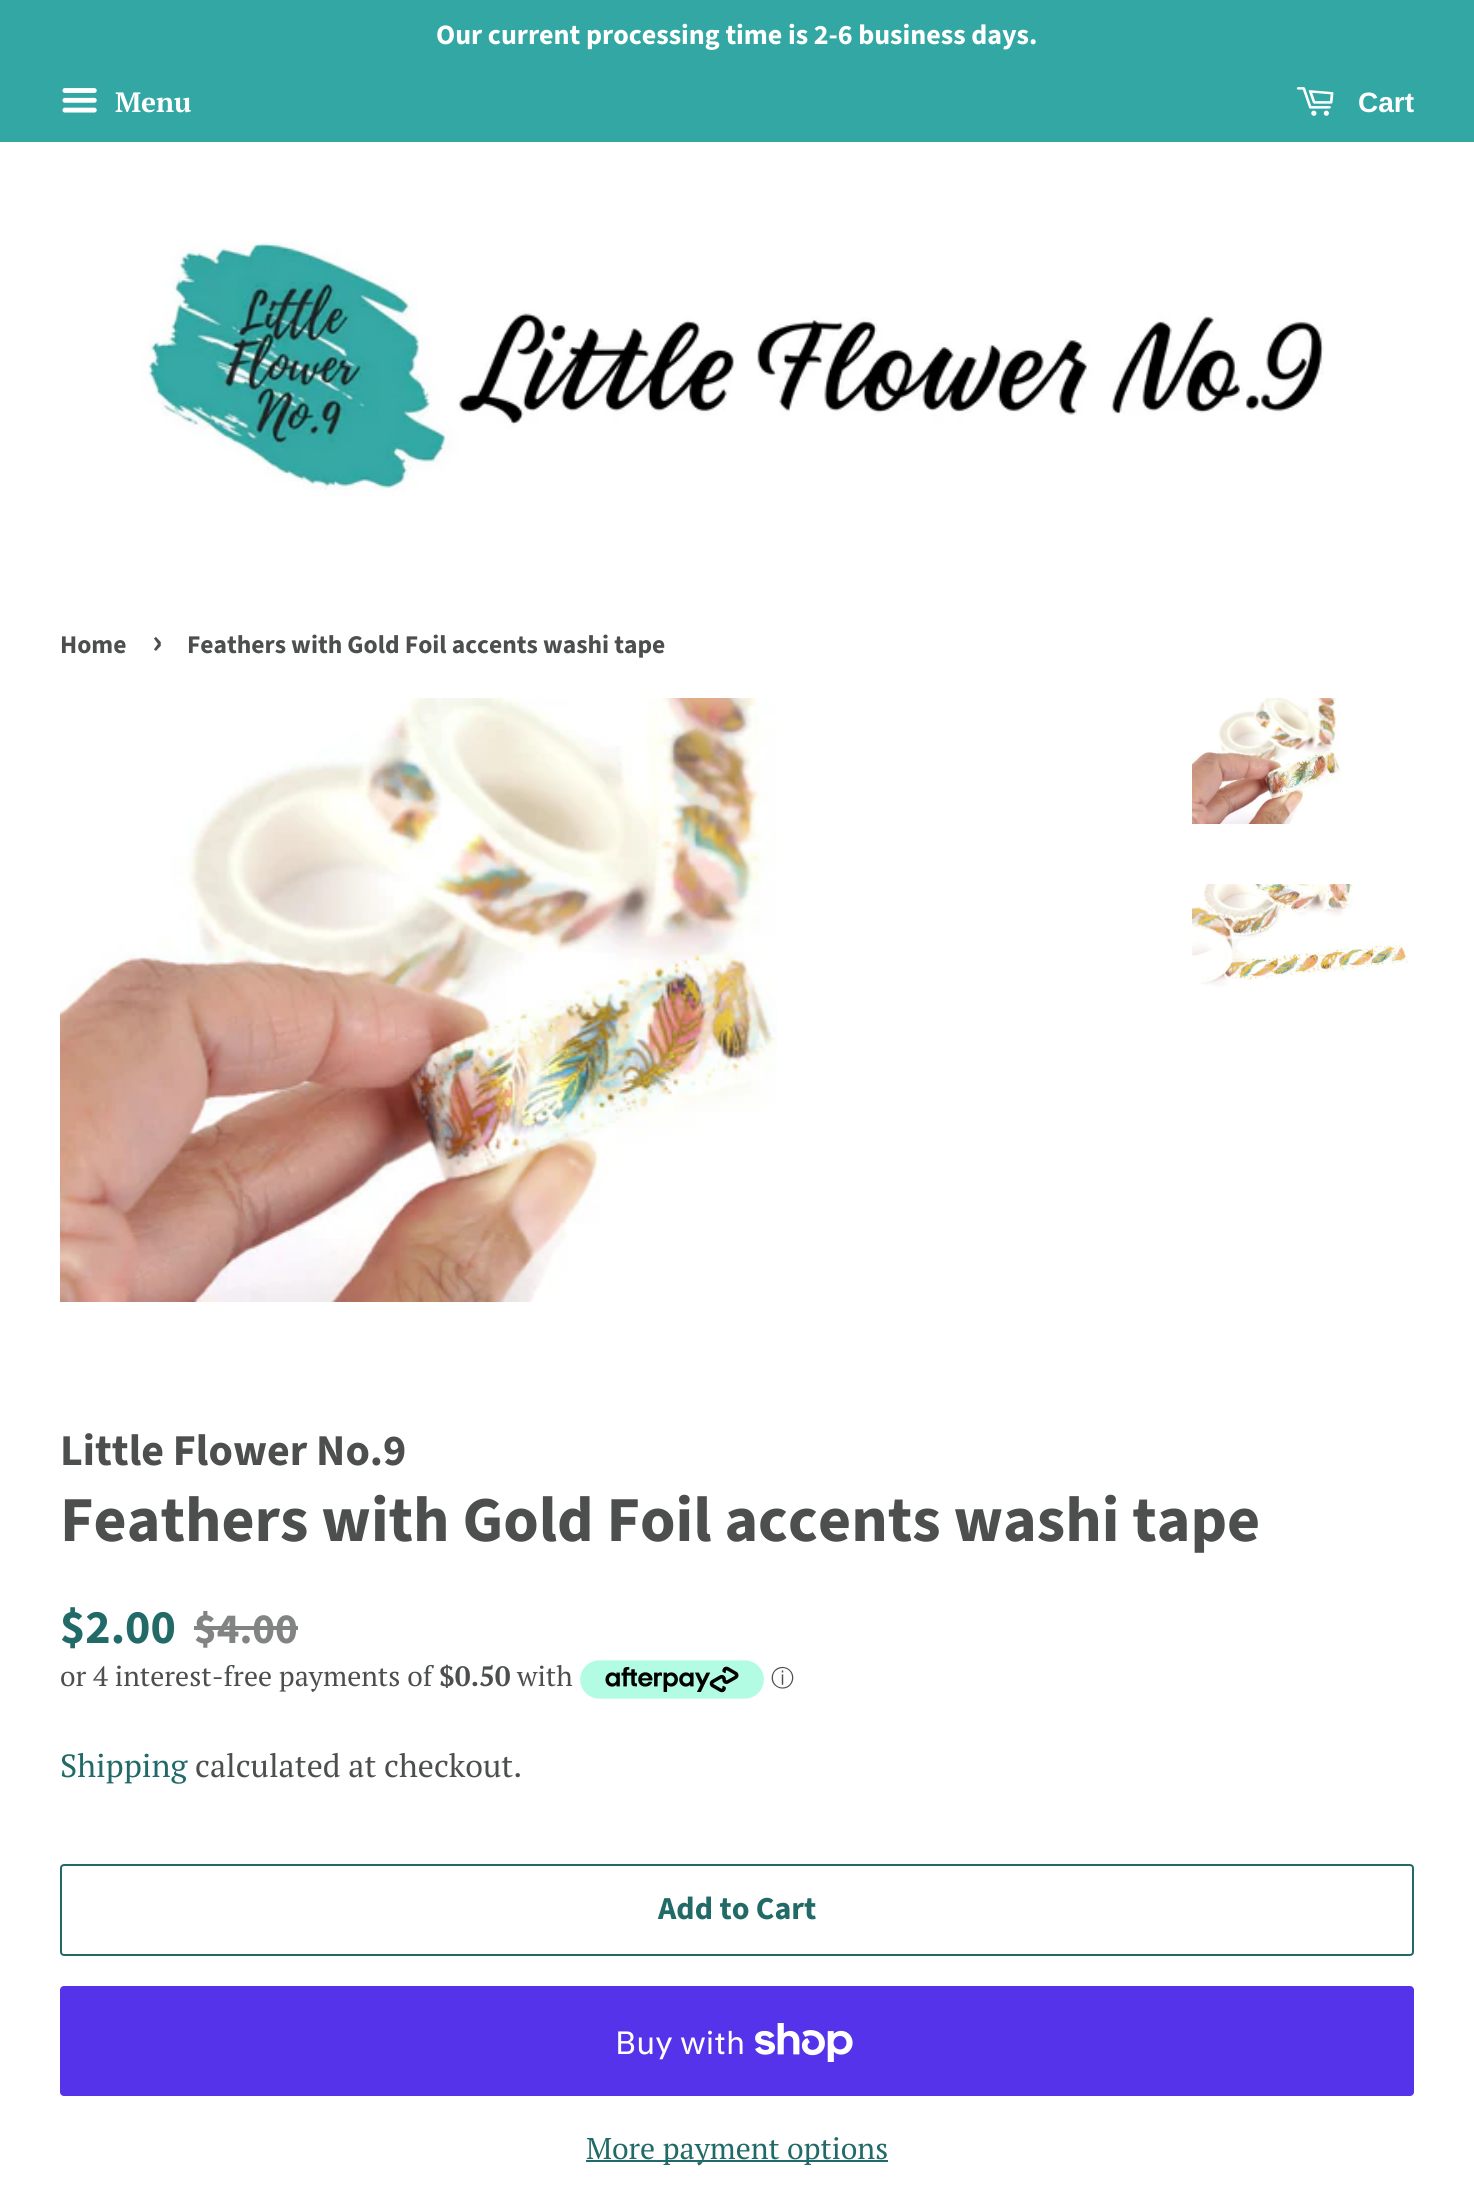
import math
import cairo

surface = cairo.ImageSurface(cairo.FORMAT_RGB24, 1474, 2191)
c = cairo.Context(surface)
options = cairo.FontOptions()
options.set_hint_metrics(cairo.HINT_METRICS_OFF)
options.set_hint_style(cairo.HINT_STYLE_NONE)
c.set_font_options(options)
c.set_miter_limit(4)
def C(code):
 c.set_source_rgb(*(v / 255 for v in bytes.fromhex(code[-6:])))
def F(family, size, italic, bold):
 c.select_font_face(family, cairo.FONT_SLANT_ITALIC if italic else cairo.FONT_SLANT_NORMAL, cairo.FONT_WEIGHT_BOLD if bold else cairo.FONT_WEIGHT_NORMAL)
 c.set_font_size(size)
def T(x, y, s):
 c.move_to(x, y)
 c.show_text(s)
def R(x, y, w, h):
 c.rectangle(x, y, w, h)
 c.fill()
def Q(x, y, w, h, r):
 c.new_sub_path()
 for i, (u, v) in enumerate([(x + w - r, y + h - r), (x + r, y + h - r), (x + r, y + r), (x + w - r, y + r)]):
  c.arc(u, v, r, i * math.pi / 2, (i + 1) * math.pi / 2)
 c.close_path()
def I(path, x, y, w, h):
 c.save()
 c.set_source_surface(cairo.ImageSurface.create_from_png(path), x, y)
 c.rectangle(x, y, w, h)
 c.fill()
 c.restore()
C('ffffff')
c.paint()
C('33a7a3')
R(0,0,1474,142)
F('Source Sans Pro',28,0,1)
C('ffffff')
T(436,44,'Our current processing time is 2-6 business days.')
I('1.png',62,88,35,25)
F('PT Serif',28,0,1)
T(115,112,'Menu')
I('2.png',1296,87,38,29)
F('Liberation Sans',28,0,1)
T(1358,112,'Cart')
I('3.png',142,239,1182,257)
F('Source Sans Pro',25.5,0,1)
C('4d4f4f')
T(60,653,'Home')
F('Source Sans Pro',36,0,1)
T(152,653,'›')
F('Source Sans Pro',25.5,0,1)
T(187,653,'Feathers with Gold Foil accents washi tape')
I('4.png',60,698,717,604)
I('5.png',1192,698,149,126)
I('6.png',1192,884,216,103)
F('Source Sans Pro',44,0,1)
T(60,1465,'Little Flower No.9')
F('Source Sans Pro',64,0,1)
T(60,1541,'Feathers with Gold Foil accents washi tape')
F('Source Sans Pro',48,0,1)
C('216a67')
T(60,1643,'$2.00')
F('Source Sans Pro',43,0,1)
C('828484')
T(194,1643,'$4.00')
R(194,1626,104,4)
F('PT Serif',28,0,0)
C('4d4f4f')
T(60,1686,'or 4 interest-free payments of')
F('PT Serif',28,0,1)
T(439,1686,'$0.50')
F('PT Serif',28,0,0)
T(517,1686,'with')
I('7.png',580,1660,184,39)
F('WenQuanYi Zen Hei Medium',23,0,0)
T(771,1686,'ⓘ')
F('PT Serif',32,0,0)
C('216a67')
T(60,1777,'Shipping')
C('4d4f4f')
T(195,1777,'calculated at checkout.')
Q(61,1865,1352,90,3)
C('216a67')
c.stroke()
F('Source Sans Pro',32,0,1)
T(658,1919,'Add to Cart')
C('5433eb')
Q(60,1986,1354,110,4)
c.fill()
F('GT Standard',32,0,0)
C('ffffff')
T(615,2054,'Buy with')
I('8.png',755,2023,98,39)
C('216a67')
R(586,2160,302,2)
F('PT Serif',30,0,0)
T(586,2159,'More payment options')
surface.write_to_png('o.png')
